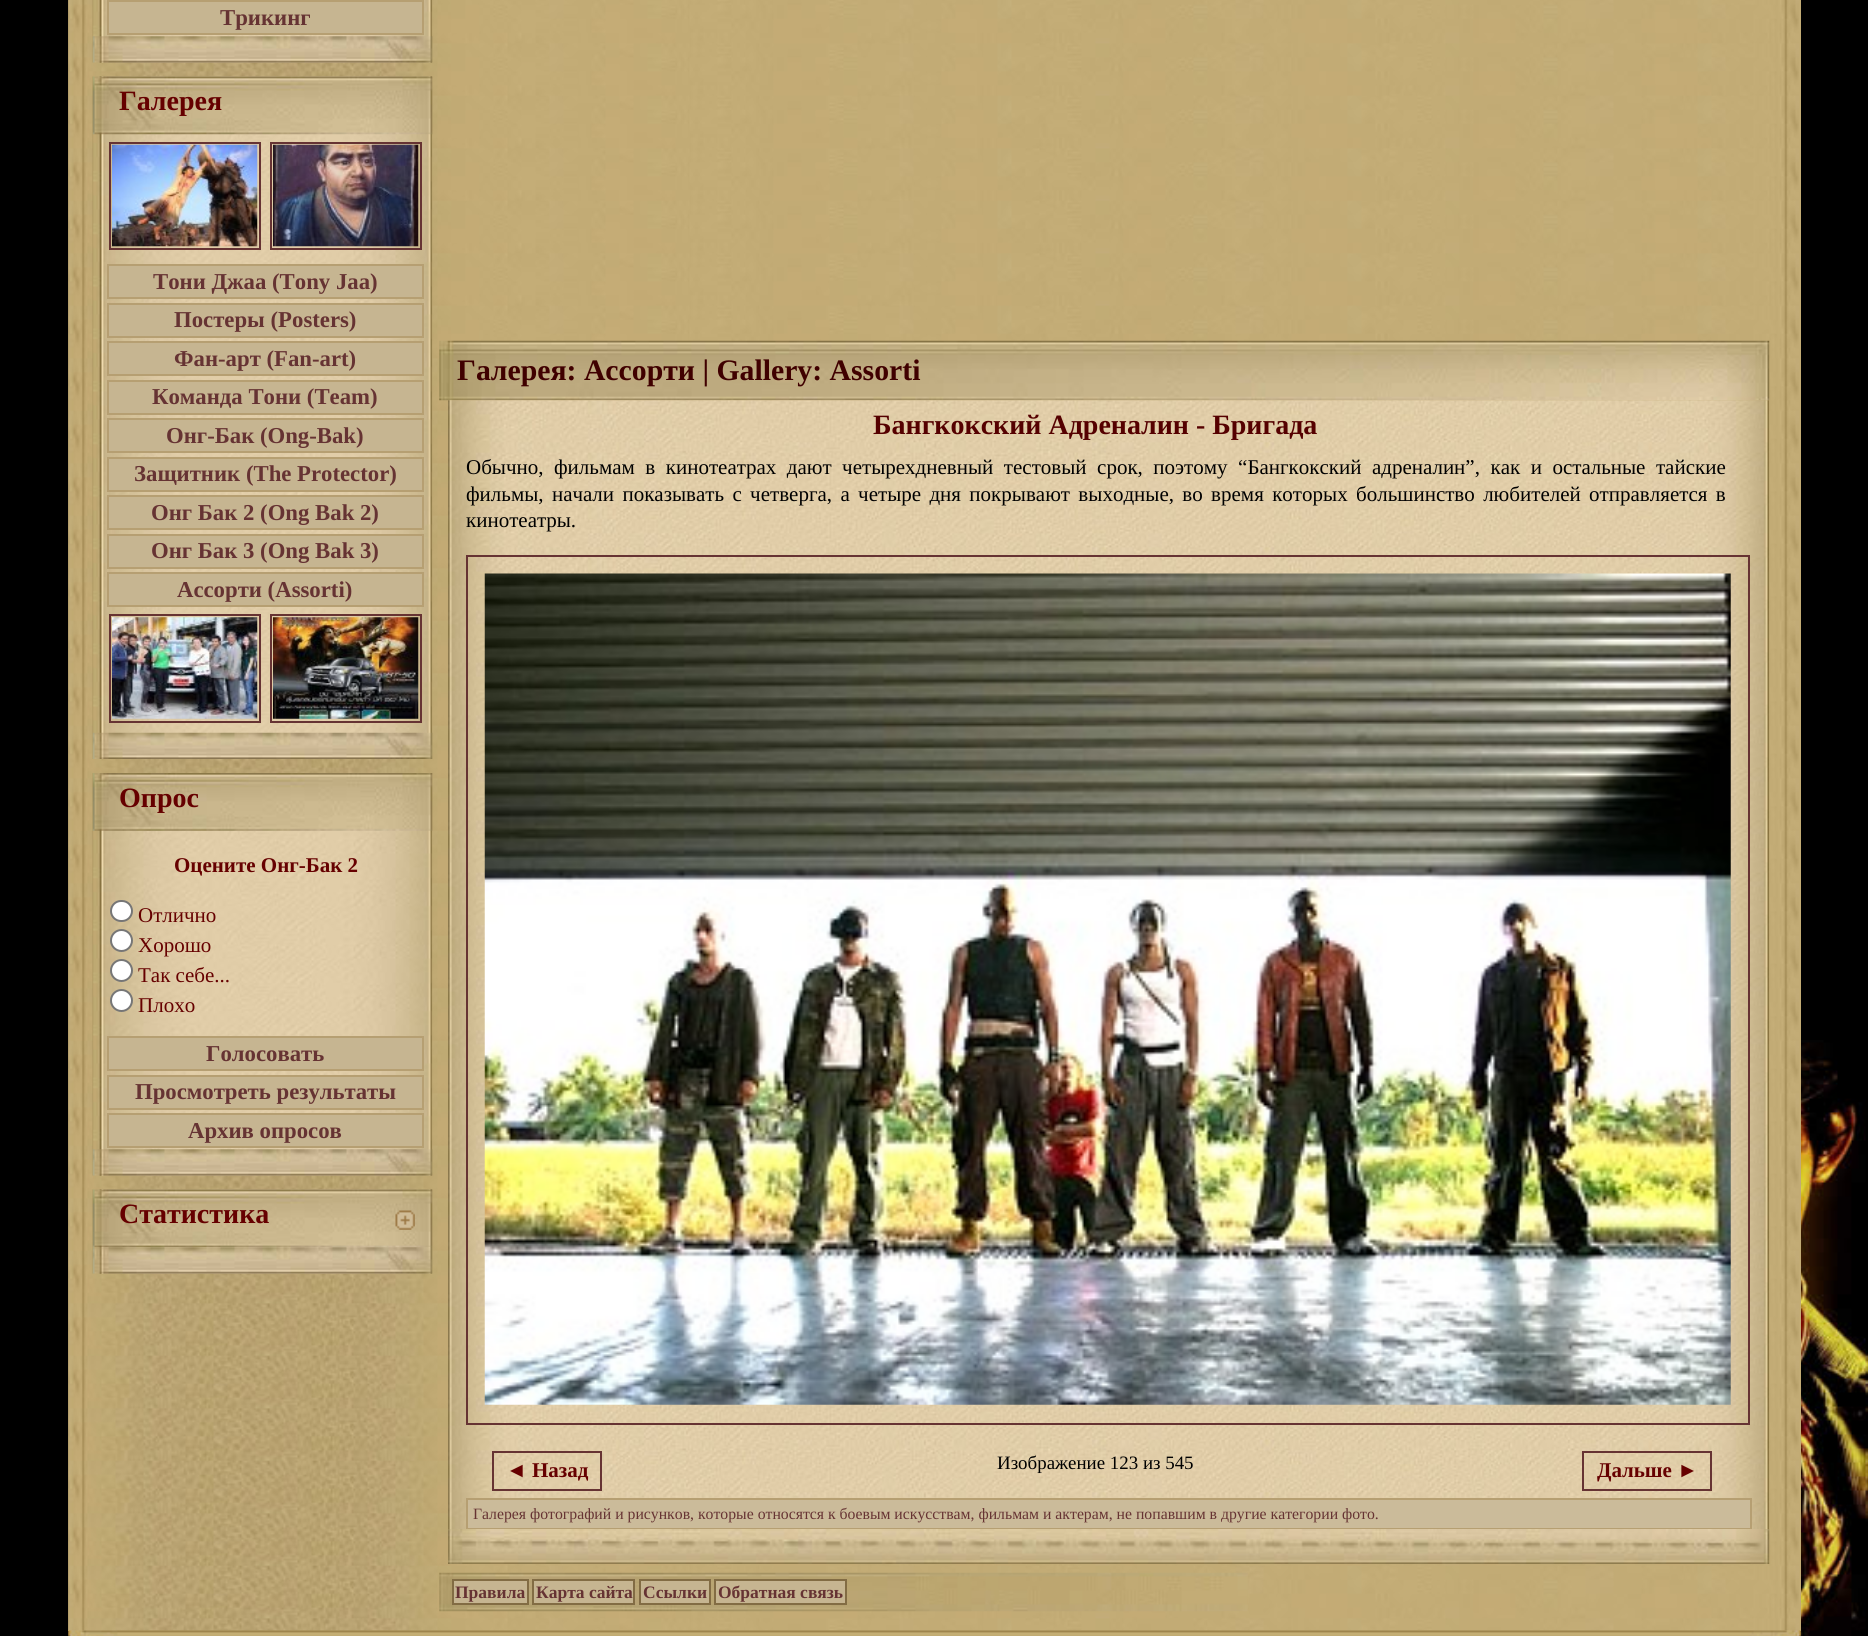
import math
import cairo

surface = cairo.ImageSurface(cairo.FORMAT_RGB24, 1868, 1636)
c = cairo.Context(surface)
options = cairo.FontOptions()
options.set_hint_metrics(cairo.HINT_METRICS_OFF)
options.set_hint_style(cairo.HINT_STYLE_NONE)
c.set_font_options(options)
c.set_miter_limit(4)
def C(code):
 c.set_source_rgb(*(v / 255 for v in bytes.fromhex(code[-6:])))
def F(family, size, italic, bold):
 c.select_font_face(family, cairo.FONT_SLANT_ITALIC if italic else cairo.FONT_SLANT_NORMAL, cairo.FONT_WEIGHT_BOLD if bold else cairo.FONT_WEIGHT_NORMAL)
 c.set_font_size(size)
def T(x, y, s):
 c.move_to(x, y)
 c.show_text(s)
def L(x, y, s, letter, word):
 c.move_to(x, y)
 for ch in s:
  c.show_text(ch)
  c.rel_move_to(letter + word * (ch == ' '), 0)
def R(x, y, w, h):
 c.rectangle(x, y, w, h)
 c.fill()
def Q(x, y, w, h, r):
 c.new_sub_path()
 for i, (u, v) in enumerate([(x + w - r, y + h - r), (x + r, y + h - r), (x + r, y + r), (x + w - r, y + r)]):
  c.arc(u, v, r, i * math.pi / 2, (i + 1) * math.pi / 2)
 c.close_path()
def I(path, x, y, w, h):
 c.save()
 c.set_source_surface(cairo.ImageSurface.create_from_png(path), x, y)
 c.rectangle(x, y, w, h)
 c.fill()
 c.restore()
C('000000')
c.paint()
I('1.png',1800,1040,68,596)
C('c2ab75')
R(68,0,1733,1631)
I('2.png',68,0,1731,1631)
I('3.png',92,0,341,63)
C('c6b591')
c.rectangle(108,1,315,33)
c.fill_preserve()
C('b69f72')
c.stroke()
F('Liberation Serif',22.75,0,1)
C('663333')
T(220,25,'Трикинг')
I('4.png',92,36,341,27)
I('5.png',92,76,341,683)
I('6.png',92,76,341,59)
F('Liberation Serif',28,0,1)
C('660000')
T(119,110,'Галерея')
c.rectangle(110,143,150,106)
C('663333')
c.stroke()
c.rectangle(271,143,150,106)
c.stroke()
I('7.png',112,144,146,103)
I('8.png',273,144,146,103)
C('c6b591')
c.rectangle(108,265,315,33)
c.fill_preserve()
C('b69f72')
c.stroke()
F('Liberation Serif',22.75,0,1)
C('663333')
T(153,289,'Тони Джаа (Tony Jaa)')
C('c6b591')
c.rectangle(108,304,315,33)
c.fill_preserve()
C('b69f72')
c.stroke()
C('663333')
T(174,327,'Постеры (Posters)')
C('c6b591')
c.rectangle(108,342,315,33)
c.fill_preserve()
C('b69f72')
c.stroke()
C('663333')
T(174,366,'Фан-арт (Fan-art)')
C('c6b591')
c.rectangle(108,381,315,33)
c.fill_preserve()
C('b69f72')
c.stroke()
C('663333')
T(152,404,'Команда Тони (Team)')
C('c6b591')
c.rectangle(108,419,315,33)
c.fill_preserve()
C('b69f72')
c.stroke()
C('663333')
T(166,443,'Онг-Бак (Ong-Bak)')
C('c6b591')
c.rectangle(108,458,315,33)
c.fill_preserve()
C('b69f72')
c.stroke()
C('663333')
T(134,481,'Защитник (The Protector)')
C('c6b591')
c.rectangle(108,496,315,33)
c.fill_preserve()
C('b69f72')
c.stroke()
C('663333')
T(151,520,'Онг Бак 2 (Ong Bak 2)')
C('c6b591')
c.rectangle(108,535,315,33)
c.fill_preserve()
C('b69f72')
c.stroke()
C('663333')
T(151,558,'Онг Бак 3 (Ong Bak 3)')
C('c6b591')
c.rectangle(108,573,315,33)
c.fill_preserve()
C('b69f72')
c.stroke()
C('663333')
T(177,597,'Ассорти (Assorti)')
c.rectangle(110,615,150,107)
c.stroke()
c.rectangle(271,615,150,107)
c.stroke()
I('9.png',112,617,146,102)
I('10.png',273,617,146,102)
I('11.png',92,732,341,27)
I('12.png',92,773,341,403)
I('13.png',92,773,341,58)
F('Liberation Serif',28,0,1)
C('660000')
T(119,807,'Опрос')
F('Liberation Serif',21,0,1)
T(174,872,'Оцените Онг-Бак 2')
C('ffffff')
Q(111,901,21,20,10)
c.fill_preserve()
C('767676')
c.stroke()
F('Liberation Serif',21,0,0)
C('660000')
T(138,922,'Отлично')
C('ffffff')
c.new_path()
c.arc(121.5,940.5,10.5,0,2 * math.pi)
c.fill_preserve()
C('767676')
c.stroke()
C('660000')
T(138,952,'Хорошо')
C('ffffff')
c.new_path()
c.arc(121.5,970.5,10.5,0,2 * math.pi)
c.fill_preserve()
C('767676')
c.stroke()
C('660000')
T(138,982,'Так себе...')
C('ffffff')
c.new_path()
c.arc(121.5,1000.5,10.5,0,2 * math.pi)
c.fill_preserve()
C('767676')
c.stroke()
C('660000')
T(138,1012,'Плохо')
C('c6b591')
c.rectangle(108,1037,315,33)
c.fill_preserve()
C('b69f72')
c.stroke()
F('Liberation Serif',22.75,0,1)
C('663333')
T(206,1061,'Голосовать')
C('c6b591')
c.rectangle(108,1076,315,33)
c.fill_preserve()
C('b69f72')
c.stroke()
C('663333')
T(135,1099,'Просмотреть результаты')
C('c6b591')
c.rectangle(108,1114,315,33)
c.fill_preserve()
C('b69f72')
c.stroke()
C('663333')
T(188,1138,'Архив опросов')
I('14.png',92,1149,341,27)
I('15.png',92,1189,341,85)
I('16.png',92,1189,341,59)
F('Liberation Serif',28,0,1)
C('660000')
T(119,1223,'Статистика')
I('17.png',395,1210,20,20)
I('18.png',92,1247,341,27)
I('19.png',439,340,1331,61)
F('Liberation Serif',29.75,0,1)
C('400000')
T(457,380,'Галерея: Ассорти | Gallery: Assorti')
I('20.png',448,400,1322,1129)
F('Liberation Serif',28,0,1)
C('550000')
T(873,434,'Бангкокский Адреналин - Бригада')
F('Liberation Serif',21,0,0)
C('000000')
L(466,474,'Обычно, фильмам в кинотеатрах дают четырехдневный тестовый срок, поэтому “Бангкокский адреналин”, как и остальные тайские',0,5.25)
L(466,501,'фильмы, начали показывать с четверга, а четыре дня покрывают выходные, во время которых большинство любителей отправляется в',0,3.1)
T(466,527,'кинотеатры.')
c.rectangle(467,556,1282,868)
C('663333')
c.stroke()
I('21.png',484,573,1247,832)
c.rectangle(493,1452,108,38)
c.stroke()
F('Liberation Serif',21,0,1)
C('660000')
T(506,1477,'◄ Назад')
F('Liberation Serif',18.9,0,0)
C('000000')
T(997,1469,'Изображение 123 из 545')
c.rectangle(1583,1452,128,38)
C('663333')
c.stroke()
F('Liberation Serif',21,0,1)
C('660000')
T(1597,1477,'Дальше ►')
C('cbbb9a')
c.rectangle(467,1499,1284,30)
c.fill_preserve()
C('b69f72')
c.stroke()
F('Liberation Serif',15.75,0,0)
C('663333')
T(473,1519,'Галерея фотографий и рисунков, которые относятся к боевым искусствам, фильмам и актерам, не попавшим в другие категории фото.')
I('22.png',448,1529,1322,35)
I('23.png',439,1572,809,40)
C('c6b591')
c.rectangle(453,1580,75,24)
c.fill_preserve()
C('826c44')
c.stroke()
F('Liberation Serif',17.5,0,1)
C('663333')
T(455,1598,'Правила')
C('c6b591')
c.rectangle(533,1580,101,24)
c.fill_preserve()
C('826c44')
c.stroke()
C('663333')
T(536,1598,'Карта сайта')
C('c6b591')
c.rectangle(640,1580,70,24)
c.fill_preserve()
C('826c44')
c.stroke()
C('663333')
T(643,1598,'Ссылки')
C('c6b591')
c.rectangle(715,1580,131,24)
c.fill_preserve()
C('826c44')
c.stroke()
C('663333')
T(718,1598,'Обратная связь')
I('24.png',68,1630,1733,6)
surface.write_to_png('o.png')
